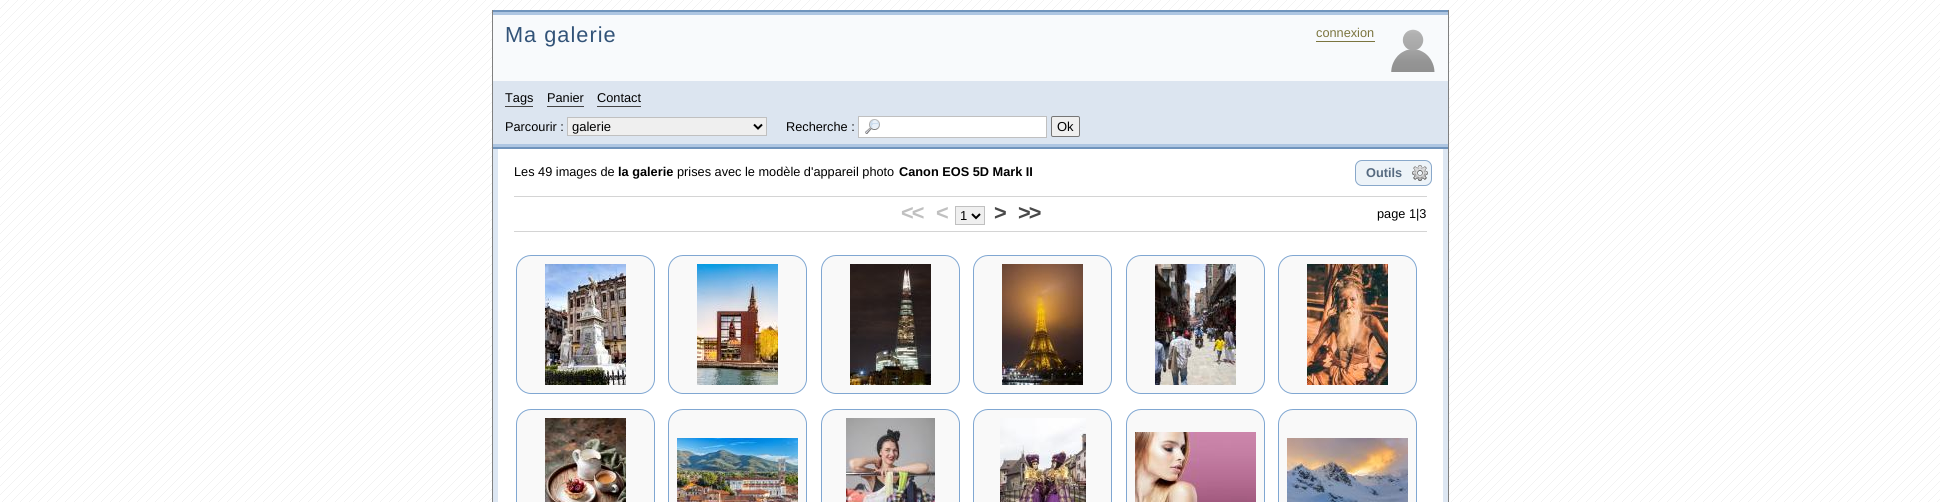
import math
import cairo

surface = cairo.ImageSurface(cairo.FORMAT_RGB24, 1940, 502)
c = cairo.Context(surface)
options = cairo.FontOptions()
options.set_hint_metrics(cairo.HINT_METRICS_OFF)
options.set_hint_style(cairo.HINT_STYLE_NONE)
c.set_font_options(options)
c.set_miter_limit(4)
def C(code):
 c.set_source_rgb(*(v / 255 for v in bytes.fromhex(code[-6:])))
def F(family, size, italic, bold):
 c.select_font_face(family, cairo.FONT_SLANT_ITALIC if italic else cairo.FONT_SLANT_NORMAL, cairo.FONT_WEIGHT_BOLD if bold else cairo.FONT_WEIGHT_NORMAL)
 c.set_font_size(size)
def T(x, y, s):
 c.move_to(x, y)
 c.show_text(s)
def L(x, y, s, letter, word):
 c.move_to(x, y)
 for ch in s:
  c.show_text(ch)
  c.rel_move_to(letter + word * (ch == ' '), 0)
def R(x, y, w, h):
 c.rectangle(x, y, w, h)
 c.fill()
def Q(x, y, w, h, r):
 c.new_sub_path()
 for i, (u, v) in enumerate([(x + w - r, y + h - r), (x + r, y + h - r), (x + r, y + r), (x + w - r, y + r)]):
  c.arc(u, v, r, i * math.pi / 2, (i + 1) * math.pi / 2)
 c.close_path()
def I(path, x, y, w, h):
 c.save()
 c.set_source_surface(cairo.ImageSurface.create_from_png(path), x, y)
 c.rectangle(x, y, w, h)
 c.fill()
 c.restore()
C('ffffff')
c.paint()
I('1.png',0,0,1940,502)
C('808080')
R(1448,10,1,492)
R(492,10,1,492)
C('dce5f0')
R(493,81,955,63)
C('f8fafc')
R(493,15,955,66)
C('7094bc')
R(493,10,955,2)
C('aec6e2')
R(493,12,955,3)
R(493,144,955,3)
F('Liberation Sans',21.75,0,0)
C('325378')
L(505,42,'Ma galerie',1,0)
F('Liberation Sans',12.75,0,0)
C('7b753f')
T(1316,37,'connexion')
R(1316,41,59,1)
I('2.png',1391,29,44,43)
C('000000')
T(505,102,'Tags')
C('444444')
R(505,106,28,1)
C('000000')
T(547,102,'Panier')
C('444444')
R(547,106,37,1)
C('000000')
T(597,102,'Contact')
C('444444')
R(597,106,44,1)
C('000000')
T(505,131,'Parcourir :')
C('efefef')
c.rectangle(567.5,117.5,199,18)
c.fill_preserve()
C('c0c0c0')
c.set_line_width(1)
c.stroke()
c.new_path()
c.move_to(754,124.5)
c.line_to(758,128.5)
c.line_to(762,124.5)
C('000000')
c.set_line_width(2)
c.stroke()
F('Liberation Sans',13,0,0)
T(572,131,'galerie')
F('Liberation Sans',12.75,0,0)
T(786,131,'Recherche :')
C('ffffff')
R(859,117,187,20)
I('3.png',865,119,15,15)
c.rectangle(858.5,116.5,188,21)
C('c0c0c0')
c.set_line_width(1)
c.stroke()
C('efefef')
Q(1051.5,116.5,28,20,1.5)
c.fill_preserve()
C('767676')
c.stroke()
F('Liberation Sans',13,0,0)
C('000000')
T(1057,131,'Ok')
C('7094bc')
R(493,147,955,2)
C('ffffff')
R(498,149,945,353)
C('dde7f3')
R(1443,149,5,353)
R(493,149,5,353)
C('d4d4d4')
R(514,196,913,1)
F('Liberation Sans',12.75,0,0)
C('000000')
T(514,176,'Les 49 images de')
F('Liberation Sans',12.75,0,1)
T(618,176,'la galerie')
F('Liberation Sans',12.75,0,0)
T(677,176,'prises avec le modèle d\'appareil photo')
F('Liberation Sans',12.75,0,1)
T(899,176,'Canon EOS 5D Mark II')
C('edf3f8')
Q(1355,160,77,26,7)
c.fill()
I('4.png',1412,165,16,16)
Q(1355.5,160.5,76,25,6.5)
C('89a8ca')
c.stroke()
C('566a80')
T(1366,177,'Outils')
C('d4d4d4')
R(514,231,913,1)
F('Liberation Sans',21.75,0,1)
C('c0c0c0')
L(901,220,'<<',-2,0)
L(936,220,'<',-2,0)
C('efefef')
c.rectangle(955.5,206.5,29,18)
c.fill_preserve()
C('c0c0c0')
c.stroke()
c.new_path()
c.move_to(972,214)
c.line_to(976,218)
c.line_to(980,214)
C('000000')
c.set_line_width(2)
c.stroke()
F('Liberation Sans',13,0,0)
T(960,220,'1')
F('Liberation Sans',21.75,0,1)
C('494949')
L(994,220,'>',-2,0)
L(1018,220,'>>',-2,0)
F('Liberation Sans',12.75,0,0)
C('000000')
T(1377,218,'page 1|3')
C('f9f9f9')
Q(516.5,255.5,138,138,14.5)
c.fill_preserve()
C('80a7d2')
c.set_line_width(1)
c.stroke()
I('5.png',545,264,81,121)
C('f9f9f9')
Q(668.5,255.5,138,138,14.5)
c.fill_preserve()
C('80a7d2')
c.stroke()
I('6.png',697,264,81,121)
C('f9f9f9')
Q(821.5,255.5,138,138,14.5)
c.fill_preserve()
C('80a7d2')
c.stroke()
I('7.png',850,264,81,121)
C('f9f9f9')
Q(973.5,255.5,138,138,14.5)
c.fill_preserve()
C('80a7d2')
c.stroke()
I('8.png',1002,264,81,121)
C('f9f9f9')
Q(1126.5,255.5,138,138,14.5)
c.fill_preserve()
C('80a7d2')
c.stroke()
I('9.png',1155,264,81,121)
C('f9f9f9')
Q(1278.5,255.5,138,138,14.5)
c.fill_preserve()
C('80a7d2')
c.stroke()
I('10.png',1307,264,81,121)
C('f9f9f9')
Q(516.5,409.5,138,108,14.5)
c.fill_preserve()
C('80a7d2')
c.stroke()
I('11.png',545,418,81,84)
C('f9f9f9')
Q(668.5,409.5,138,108,14.5)
c.fill_preserve()
C('80a7d2')
c.stroke()
I('12.png',677,438,121,64)
C('f9f9f9')
Q(821.5,409.5,138,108,14.5)
c.fill_preserve()
C('80a7d2')
c.stroke()
I('13.png',846,418,89,84)
C('f9f9f9')
Q(973.5,409.5,138,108,14.5)
c.fill_preserve()
C('80a7d2')
c.stroke()
I('14.png',1000,418,86,84)
C('f9f9f9')
Q(1126.5,409.5,138,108,14.5)
c.fill_preserve()
C('80a7d2')
c.stroke()
I('15.png',1135,432,121,70)
C('f9f9f9')
Q(1278.5,409.5,138,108,14.5)
c.fill_preserve()
C('80a7d2')
c.stroke()
I('16.png',1287,438,121,64)
surface.write_to_png('o.png')
